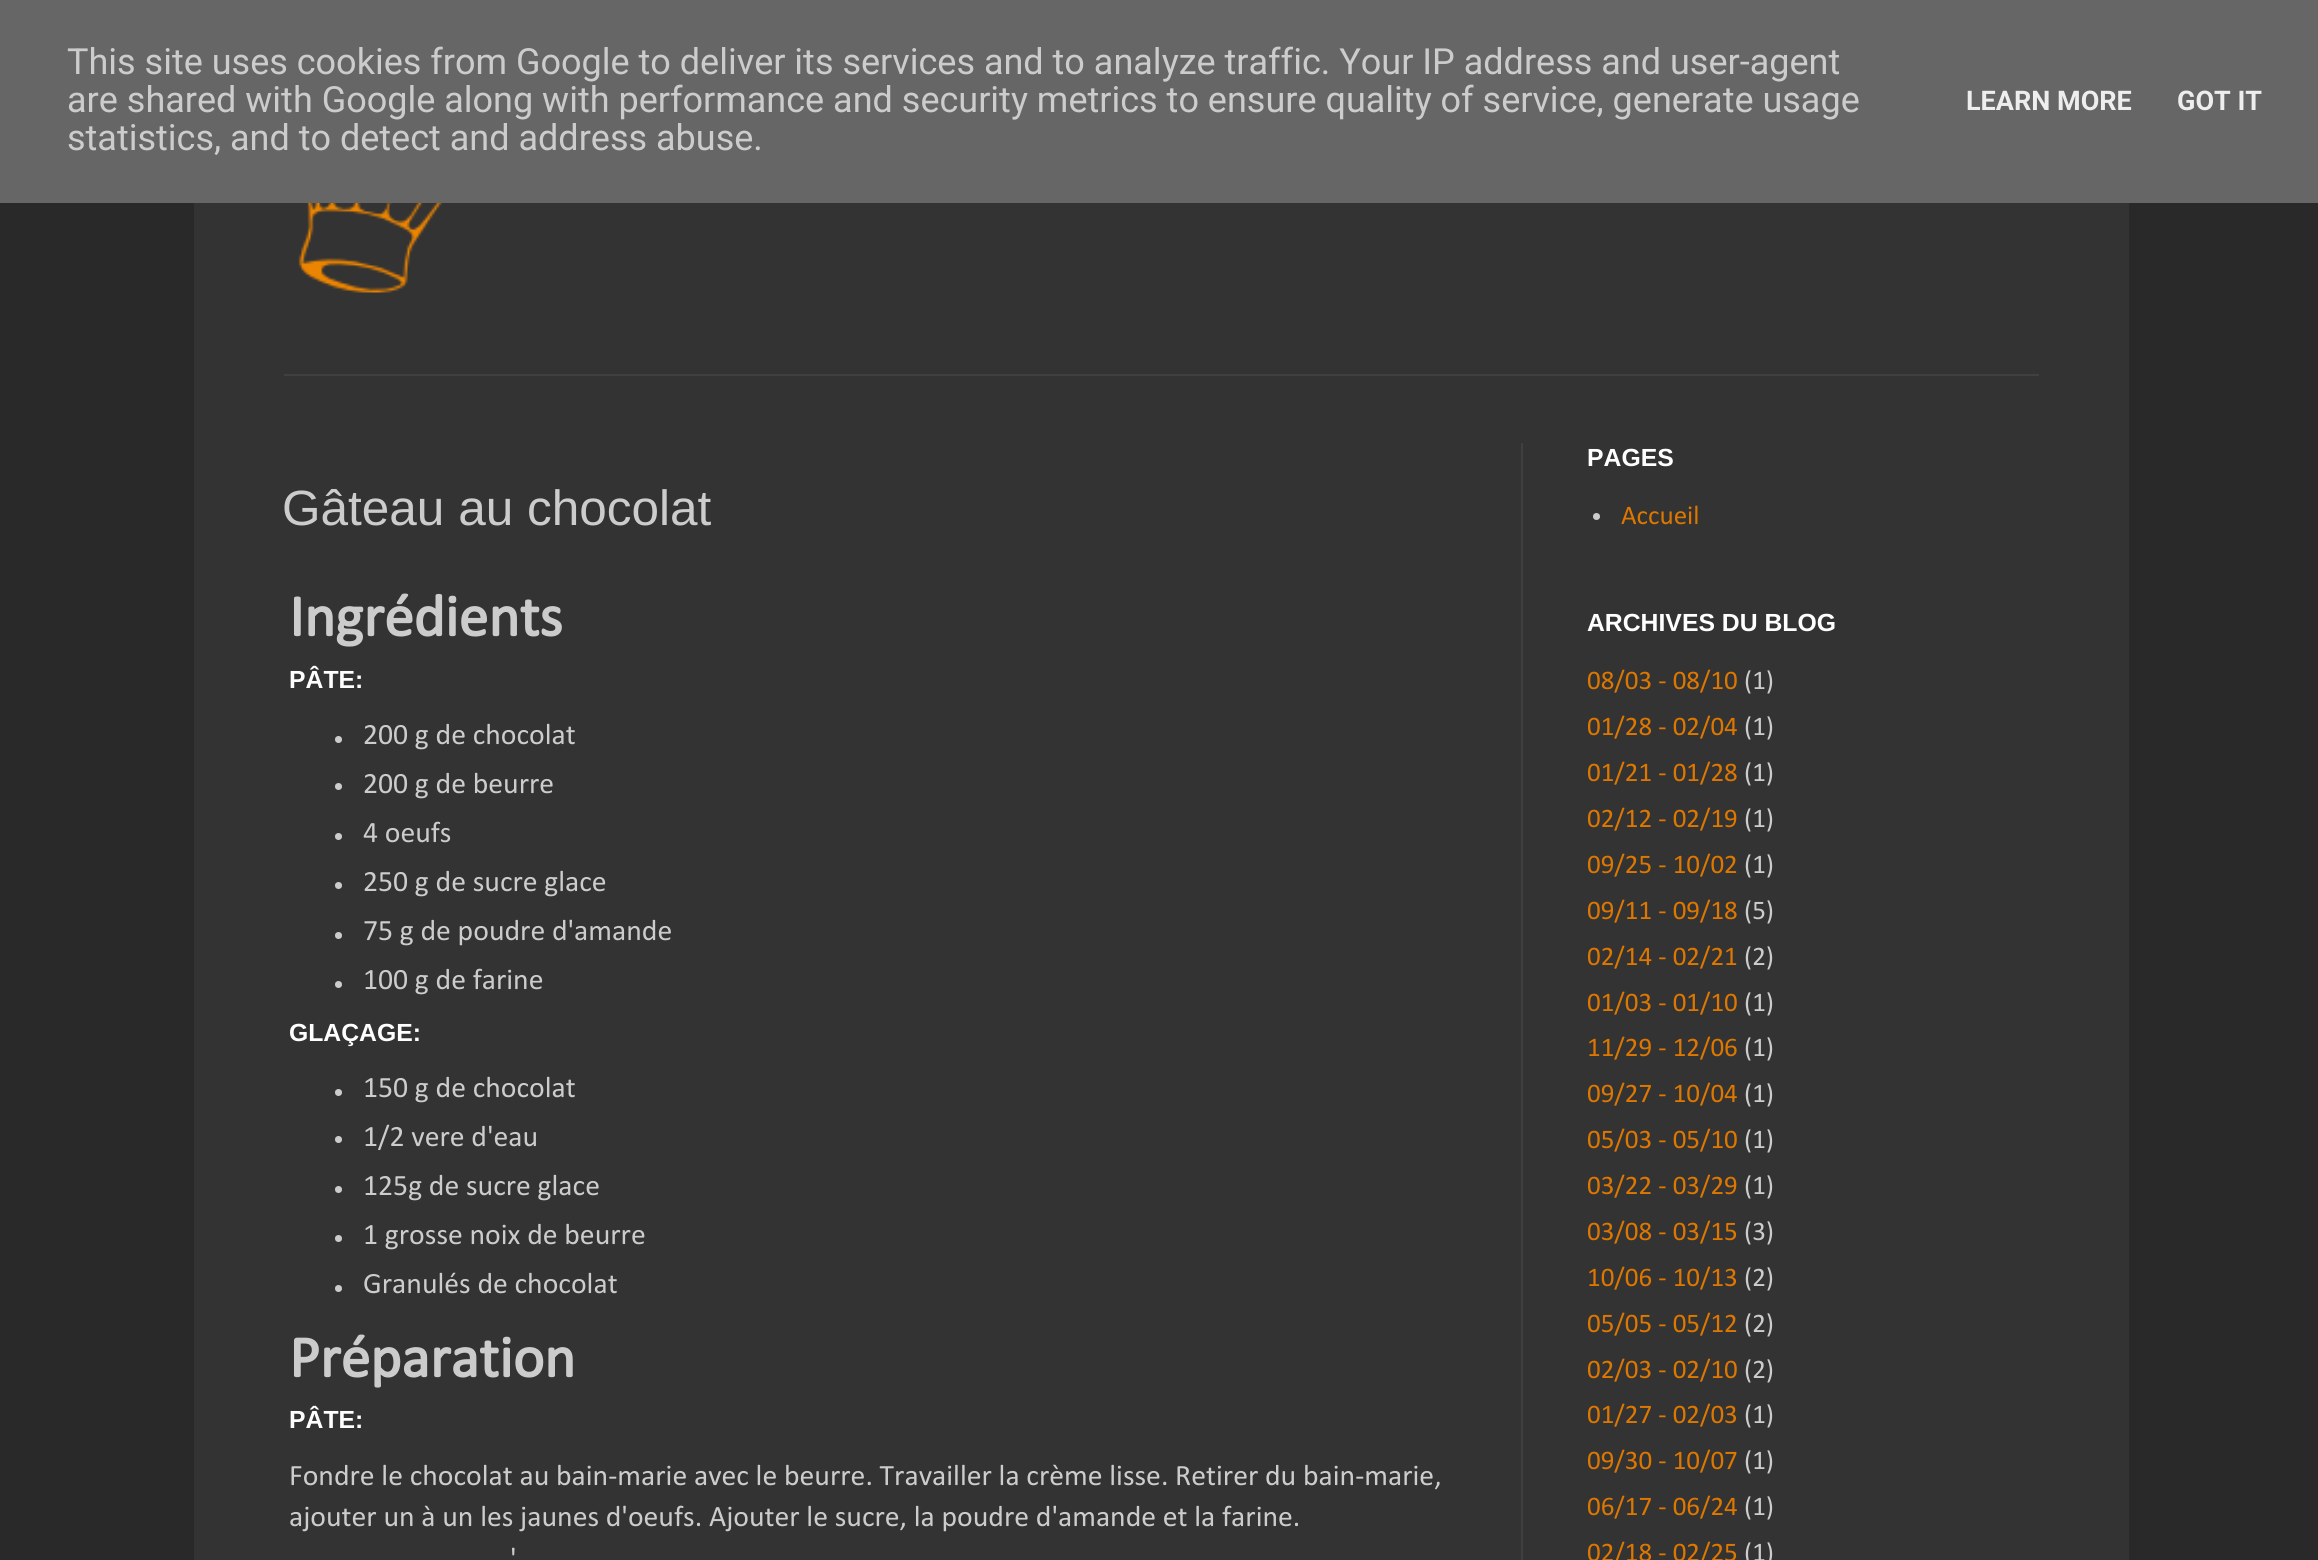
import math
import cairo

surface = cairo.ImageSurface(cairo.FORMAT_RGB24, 2318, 1560)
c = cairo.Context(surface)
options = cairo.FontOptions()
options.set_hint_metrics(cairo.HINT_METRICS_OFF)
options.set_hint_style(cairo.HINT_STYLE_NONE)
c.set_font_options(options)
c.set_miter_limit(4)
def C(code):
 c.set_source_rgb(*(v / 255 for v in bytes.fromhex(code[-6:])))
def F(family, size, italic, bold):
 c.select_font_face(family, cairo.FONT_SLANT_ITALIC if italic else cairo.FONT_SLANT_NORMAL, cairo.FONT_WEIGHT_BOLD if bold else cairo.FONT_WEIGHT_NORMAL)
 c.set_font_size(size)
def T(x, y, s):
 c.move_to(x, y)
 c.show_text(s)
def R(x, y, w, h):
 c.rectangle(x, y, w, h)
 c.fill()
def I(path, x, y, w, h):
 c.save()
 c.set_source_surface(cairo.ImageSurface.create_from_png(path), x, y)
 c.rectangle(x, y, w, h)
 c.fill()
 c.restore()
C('292929')
c.paint()
C('666666')
R(0,0,2318,203)
F('Roboto',36,0,0)
C('cccccc')
T(67,74,'This site uses cookies from Google to deliver its services and to analyze traffic. Your IP address and user-agent')
T(67,112,'are shared with Google along with performance and security metrics to ensure quality of service, generate usage')
T(67,150,'statistics, and to detect and address abuse.')
F('Roboto',27,0,1)
C('eeeeee')
T(1966,110,'LEARN MORE')
T(2177,110,'GOT IT')
C('333333')
R(194,203,1935,1357)
I('1.png',298,203,144,90)
C('404040')
R(284,374,1755,2)
R(1521,443,2,1117)
F('Liberation Sans',49.5,0,0)
C('cccccc')
T(282,525,'Gâteau au chocolat')
F('Calibri',59.5,0,1)
T(289,636,'Ingrédients')
F('Liberation Sans',24.75,0,1)
C('ffffff')
T(289,688,'PÂTE:')
C('cccccc')
c.new_path()
c.arc(338.5,739.5,3.5,0,2 * math.pi)
c.fill()
F('Calibri',29.7,0,0)
T(363,744,'200 g de chocolat')
c.new_path()
c.arc(338.5,786.5,3.5,0,2 * math.pi)
c.fill()
T(363,793,'200 g de beurre')
c.new_path()
c.arc(338.5,836.5,3.5,0,2 * math.pi)
c.fill()
T(363,842,'4 oeufs')
c.new_path()
c.arc(338.5,885.5,3.5,0,2 * math.pi)
c.fill()
T(363,891,'250 g de sucre glace')
c.new_path()
c.arc(338.5,935.5,3.5,0,2 * math.pi)
c.fill()
T(363,940,'75 g de poudre d\'amande')
c.new_path()
c.arc(338.5,984.5,3.5,0,2 * math.pi)
c.fill()
T(363,989,'100 g de farine')
F('Liberation Sans',24.75,0,1)
C('ffffff')
T(289,1041,'GLAÇAGE:')
C('cccccc')
c.new_path()
c.arc(338.5,1092.5,3.5,0,2 * math.pi)
c.fill()
F('Calibri',29.7,0,0)
T(363,1097,'150 g de chocolat')
c.new_path()
c.arc(338.5,1139.5,3.5,0,2 * math.pi)
c.fill()
T(363,1146,'1/2 vere d\'eau')
c.new_path()
c.arc(338.5,1189.5,3.5,0,2 * math.pi)
c.fill()
T(363,1195,'125g de sucre glace')
c.new_path()
c.arc(338.5,1238.5,3.5,0,2 * math.pi)
c.fill()
T(363,1244,'1 grosse noix de beurre')
c.new_path()
c.arc(338.5,1288.5,3.5,0,2 * math.pi)
c.fill()
T(363,1293,'Granulés de chocolat')
F('Calibri',59.5,0,1)
T(289,1377,'Préparation')
F('Liberation Sans',24.75,0,1)
C('ffffff')
T(289,1428,'PÂTE:')
F('Calibri',29.7,0,0)
C('cccccc')
T(289,1485,'Fondre le chocolat au bain-marie avec le beurre. Travailler la crème lisse. Retirer du bain-marie,')
T(289,1526,'ajouter un à un les jaunes d\'oeufs.')
T(709,1526,'Ajouter le sucre, la poudre d\'amande et la farine.')
T(510,1568,'\'')
F('Liberation Sans',24.75,0,1)
C('ffffff')
T(1587,466,'PAGES')
C('cccccc')
c.new_path()
c.arc(1596.5,516.5,3.5,0,2 * math.pi)
c.fill()
F('Calibri',27,0,0)
C('dd7700')
T(1621,524,'Accueil')
F('Liberation Sans',24.75,0,1)
C('ffffff')
T(1587,631,'ARCHIVES DU BLOG')
F('Calibri',27,0,0)
C('dd7700')
T(1587,689,'08/03 - 08/10')
C('cccccc')
T(1744,689,'(1)')
C('dd7700')
T(1587,735,'01/28 - 02/04')
C('cccccc')
T(1744,735,'(1)')
C('dd7700')
T(1587,781,'01/21 - 01/28')
C('cccccc')
T(1744,781,'(1)')
C('dd7700')
T(1587,827,'02/12 - 02/19')
C('cccccc')
T(1744,827,'(1)')
C('dd7700')
T(1587,873,'09/25 - 10/02')
C('cccccc')
T(1744,873,'(1)')
C('dd7700')
T(1587,919,'09/11 - 09/18')
C('cccccc')
T(1744,919,'(5)')
C('dd7700')
T(1587,965,'02/14 - 02/21')
C('cccccc')
T(1744,965,'(2)')
C('dd7700')
T(1587,1011,'01/03 - 01/10')
C('cccccc')
T(1744,1011,'(1)')
C('dd7700')
T(1587,1056,'11/29 - 12/06')
C('cccccc')
T(1744,1056,'(1)')
C('dd7700')
T(1587,1102,'09/27 - 10/04')
C('cccccc')
T(1744,1102,'(1)')
C('dd7700')
T(1587,1148,'05/03 - 05/10')
C('cccccc')
T(1744,1148,'(1)')
C('dd7700')
T(1587,1194,'03/22 - 03/29')
C('cccccc')
T(1744,1194,'(1)')
C('dd7700')
T(1587,1240,'03/08 - 03/15')
C('cccccc')
T(1744,1240,'(3)')
C('dd7700')
T(1587,1286,'10/06 - 10/13')
C('cccccc')
T(1744,1286,'(2)')
C('dd7700')
T(1587,1332,'05/05 - 05/12')
C('cccccc')
T(1744,1332,'(2)')
C('dd7700')
T(1587,1378,'02/03 - 02/10')
C('cccccc')
T(1744,1378,'(2)')
C('dd7700')
T(1587,1423,'01/27 - 02/03')
C('cccccc')
T(1744,1423,'(1)')
C('dd7700')
T(1587,1469,'09/30 - 10/07')
C('cccccc')
T(1744,1469,'(1)')
C('dd7700')
T(1587,1515,'06/17 - 06/24')
C('cccccc')
T(1744,1515,'(1)')
C('dd7700')
T(1587,1561,'02/18 - 02/25')
C('cccccc')
T(1744,1561,'(1)')
surface.write_to_png('o.png')
